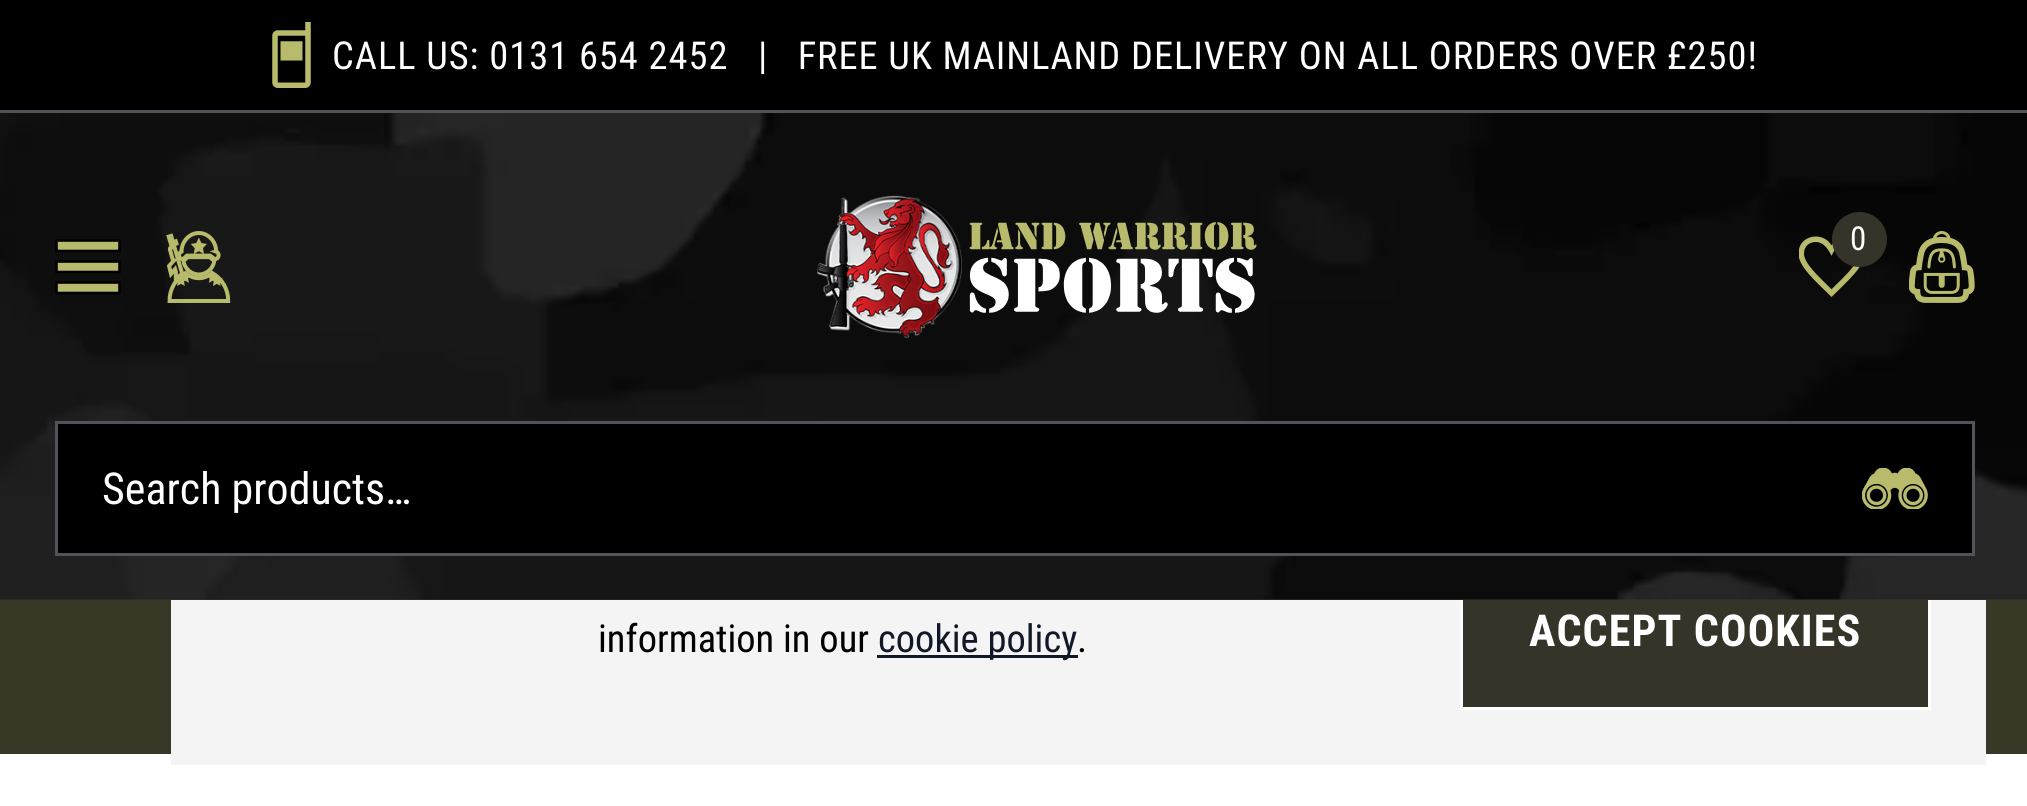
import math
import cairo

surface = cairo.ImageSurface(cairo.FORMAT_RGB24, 2027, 806)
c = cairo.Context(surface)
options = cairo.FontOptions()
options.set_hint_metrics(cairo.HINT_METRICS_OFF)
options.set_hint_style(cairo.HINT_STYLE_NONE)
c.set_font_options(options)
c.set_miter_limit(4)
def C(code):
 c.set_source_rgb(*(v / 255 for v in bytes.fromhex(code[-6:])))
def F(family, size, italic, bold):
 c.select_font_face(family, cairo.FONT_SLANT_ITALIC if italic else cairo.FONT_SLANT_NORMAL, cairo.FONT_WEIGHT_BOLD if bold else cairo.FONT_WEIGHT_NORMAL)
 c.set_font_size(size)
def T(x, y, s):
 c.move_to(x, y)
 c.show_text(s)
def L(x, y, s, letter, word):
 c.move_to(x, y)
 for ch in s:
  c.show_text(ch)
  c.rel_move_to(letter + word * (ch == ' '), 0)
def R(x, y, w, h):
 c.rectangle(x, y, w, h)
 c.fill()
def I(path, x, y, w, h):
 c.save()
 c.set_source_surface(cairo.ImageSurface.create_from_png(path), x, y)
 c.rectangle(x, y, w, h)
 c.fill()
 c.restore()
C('ffffff')
c.paint()
C('000000')
R(0,0,2027,110)
C('52525b')
R(0,110,2027,3)
I('1.png',272,22,39,66)
F('Roboto Condensed',38.5,0,0)
C('ffffff')
L(332,69,'CALL US: 0131 654 2452',.95,0)
L(758,69,'|   FREE UK MAINLAND DELIVERY ON ALL ORDERS OVER £250!',.95,0)
C('393826')
R(0,600,2027,154)
C('f4f4f5')
R(171,600,1815,165)
C('363429')
R(1463,600,465,107)
c.rectangle(1461.5,557.5,468,151)
C('ffffff')
c.set_line_width(3)
c.stroke()
C('363429')
R(0,599,2027,1)
I('2.png',0,113,2027,487)
C('b8bb6c')
c.new_path()
c.move_to(120,251)
c.line_to(56,251)
c.line_to(56,240)
c.line_to(120,240)
c.close_path()
c.move_to(120,261)
c.line_to(56,261)
c.line_to(56,272)
c.line_to(120,272)
c.close_path()
c.move_to(120,283)
c.line_to(56,283)
c.line_to(56,293)
c.line_to(120,293)
c.close_path()
c.fill()
c.new_path()
c.move_to(119.5,251)
c.line_to(56.5,251)
c.line_to(56.5,240.5)
c.line_to(119.5,240.5)
c.close_path()
c.move_to(119.5,261.5)
c.line_to(56.5,261.5)
c.line_to(56.5,272)
c.line_to(119.5,272)
c.close_path()
c.move_to(119.5,282.5)
c.line_to(56.5,282.5)
c.line_to(56.5,293)
c.line_to(119.5,293)
c.close_path()
C('000000')
c.set_line_width(2.6)
c.stroke()
I('3.png',166,231,65,72)
I('4.png',817,195,440,143)
I('5.png',1799,236,62,61)
C('363429')
c.arc(1859.5,239.5,27.5,0,2 * math.pi)
c.fill()
F('Roboto Condensed',33,0,0)
C('ffffff')
T(1850,250,'0')
I('6.png',1909,231,66,72)
C('000000')
c.rectangle(56.5,422.5,1917,132)
c.fill_preserve()
C('52525b')
c.set_line_width(3)
c.stroke()
F('Roboto Condensed',44,0,0)
C('ffffff')
T(102,504,'Search products…')
I('7.png',1862,468,66,41)
F('Roboto Condensed',38.5,0,0)
C('000000')
T(598,652,'information in our')
C('111827')
R(877,655,201,3)
T(878,652,'cookie policy')
C('000000')
T(1077,652,'.')
F('Roboto Condensed',44,0,1)
C('ffffff')
L(1529,646,'ACCEPT COOKIES',1.1,0)
surface.write_to_png('o.png')
